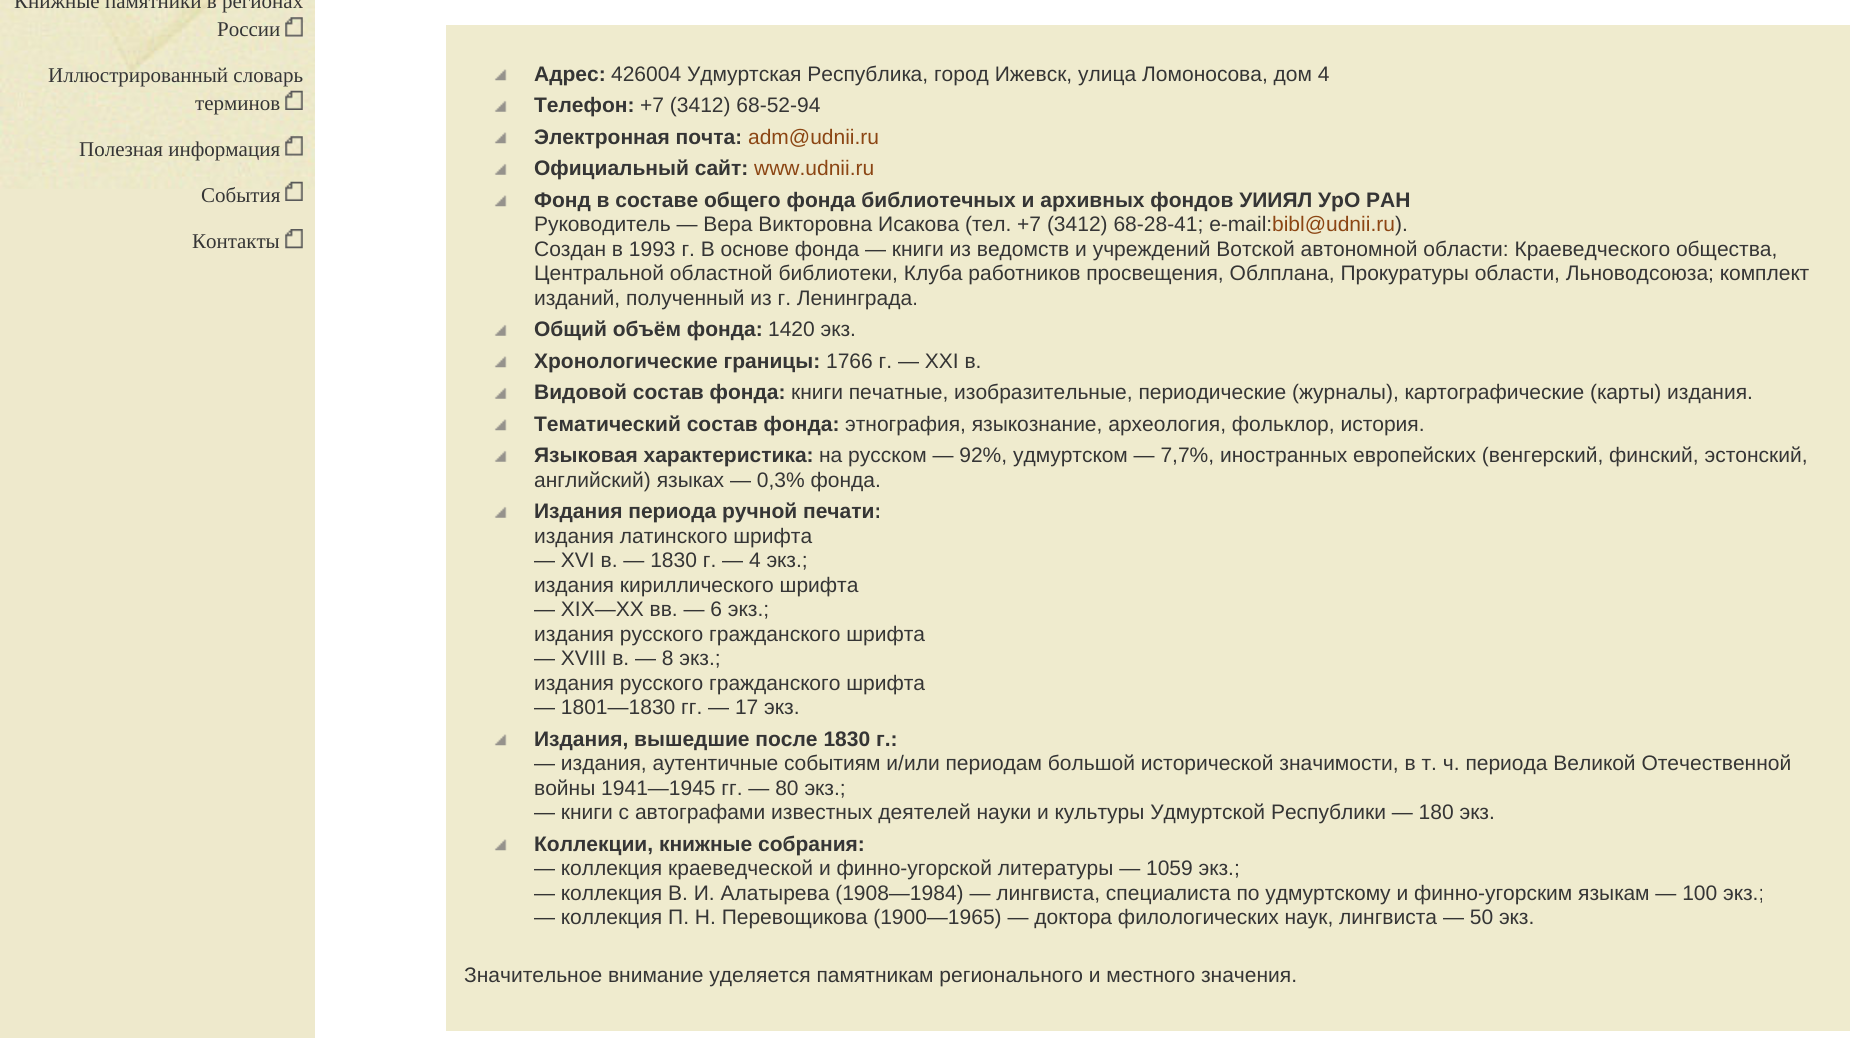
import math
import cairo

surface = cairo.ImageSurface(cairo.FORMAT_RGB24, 1868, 1038)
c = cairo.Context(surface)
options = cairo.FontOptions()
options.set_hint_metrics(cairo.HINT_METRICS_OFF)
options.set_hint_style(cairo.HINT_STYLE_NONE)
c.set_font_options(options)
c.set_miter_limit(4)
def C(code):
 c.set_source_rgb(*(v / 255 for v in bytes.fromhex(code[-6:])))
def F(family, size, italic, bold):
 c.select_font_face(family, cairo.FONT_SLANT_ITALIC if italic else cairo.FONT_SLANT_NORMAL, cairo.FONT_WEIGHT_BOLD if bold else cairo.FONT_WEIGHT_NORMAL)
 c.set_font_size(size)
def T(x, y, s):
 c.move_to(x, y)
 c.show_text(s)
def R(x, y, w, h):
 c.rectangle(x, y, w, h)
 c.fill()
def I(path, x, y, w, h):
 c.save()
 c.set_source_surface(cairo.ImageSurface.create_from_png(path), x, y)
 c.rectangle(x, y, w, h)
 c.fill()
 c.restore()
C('ffffff')
c.paint()
C('eee9cc')
R(0,188,315,850)
I('1.png',0,0,315,189)
F('Liberation Serif',21,0,0)
C('353535')
T(14,8,'Книжные памятники в регионах')
T(217,36,'России')
I('2.png',285,17,18,20)
T(48,82,'Иллюстрированный словарь')
T(195,110,'терминов')
I('3.png',285,90,18,20)
T(79,156,'Полезная информация')
I('4.png',285,136,18,20)
T(201,202,'События')
I('5.png',285,181,18,20)
T(192,248,'Контакты')
I('6.png',285,229,18,20)
C('efebce')
R(446,25,1404,1006)
I('7.png',494,69,13,12)
F('Liberation Sans',21,0,1)
C('353535')
T(534,81,'Адрес:')
F('Liberation Sans',21,0,0)
T(611,81,'426004 Удмуртская Республика, город Ижевск, улица Ломоносова, дом 4')
I('8.png',494,100,13,12)
F('Liberation Sans',21,0,1)
T(534,112,'Телефон:')
F('Liberation Sans',21,0,0)
T(640,112,'+7 (3412) 68-52-94')
I('7.png',494,132,13,12)
F('Liberation Sans',21,0,1)
T(534,144,'Электронная почта:')
F('Liberation Sans',21,0,0)
C('8b4513')
T(748,144,'adm@udnii.ru')
I('8.png',494,163,13,12)
F('Liberation Sans',21,0,1)
C('353535')
T(534,175,'Официальный сайт:')
F('Liberation Sans',21,0,0)
C('8b4513')
T(754,175,'www.udnii.ru')
I('7.png',494,195,13,12)
F('Liberation Sans',21,0,1)
C('353535')
T(534,207,'Фонд в составе общего фонда библиотечных и архивных фондов УИИЯЛ УрО РАН')
F('Liberation Sans',21,0,0)
T(534,231,'Руководитель — Вера Викторовна Исакова (тел. +7 (3412) 68-28-41; e-mail:')
C('8b4513')
T(1272,231,'bibl@udnii.ru')
C('353535')
T(1395,231,').')
T(534,256,'Создан в 1993 г. В основе фонда — книги из ведомств и учреждений Вотской автономной области: Краеведческого общества,')
T(534,280,'Центральной областной библиотеки, Клуба работников просвещения, Облплана, Прокуратуры области, Льноводсоюза; комплект')
T(534,305,'изданий, полученный из г. Ленинграда.')
I('8.png',494,324,13,12)
F('Liberation Sans',21,0,1)
T(534,336,'Общий объём фонда:')
F('Liberation Sans',21,0,0)
T(768,336,'1420 экз.')
I('7.png',494,356,13,12)
F('Liberation Sans',21,0,1)
T(534,368,'Хронологические границы:')
F('Liberation Sans',21,0,0)
T(826,368,'1766 г. — XXI в.')
I('8.png',494,387,13,12)
F('Liberation Sans',21,0,1)
T(534,399,'Видовой состав фонда:')
F('Liberation Sans',21,0,0)
T(791,399,'книги печатные, изобразительные, периодические (журналы), картографические (карты) издания.')
I('7.png',494,419,13,12)
F('Liberation Sans',21,0,1)
T(534,431,'Тематический состав фонда:')
F('Liberation Sans',21,0,0)
T(845,431,'этнография, языкознание, археология, фольклор, история.')
I('8.png',494,450,13,12)
F('Liberation Sans',21,0,1)
T(534,462,'Языковая характеристика:')
F('Liberation Sans',21,0,0)
T(819,462,'на русском — 92%, удмуртском — 7,7%, иностранных европейских (венгерский, финский, эстонский,')
T(534,487,'английский) языках — 0,3% фонда.')
I('8.png',494,506,13,12)
F('Liberation Sans',21,0,1)
T(534,518,'Издания периода ручной печати:')
F('Liberation Sans',21,0,0)
T(534,543,'издания латинского шрифта')
T(534,567,'— XVI в. — 1830 г. — 4 экз.;')
T(534,592,'издания кириллического шрифта')
T(534,616,'— XIX—XX вв. — 6 экз.;')
T(534,641,'издания русского гражданского шрифта')
T(534,665,'— XVIII в. — 8 экз.;')
T(534,690,'издания русского гражданского шрифта')
T(534,714,'— 1801—1830 гг. — 17 экз.')
I('7.png',494,734,13,12)
F('Liberation Sans',21,0,1)
T(534,746,'Издания, вышедшие после 1830 г.:')
F('Liberation Sans',21,0,0)
T(534,770,'— издания, аутентичные событиям и/или периодам большой исторической значимости, в т. ч. периода Великой Отечественной')
T(534,795,'войны 1941—1945 гг. — 80 экз.;')
T(534,819,'— книги с автографами известных деятелей науки и культуры Удмуртской Республики — 180 экз.')
I('7.png',494,839,13,12)
F('Liberation Sans',21,0,1)
T(534,851,'Коллекции, книжные собрания:')
F('Liberation Sans',21,0,0)
T(534,875,'— коллекция краеведческой и финно-угорской литературы — 1059 экз.;')
T(534,900,'— коллекция В. И. Алатырева (1908—1984) — лингвиста, специалиста по удмуртскому и финно-угорским языкам — 100 экз.;')
T(534,924,'— коллекция П. Н. Перевощикова (1900—1965) — доктора филологических наук, лингвиста — 50 экз.')
T(464,982,'Значительное внимание уделяется памятникам регионального и местного значения.')
surface.write_to_png('o.png')
